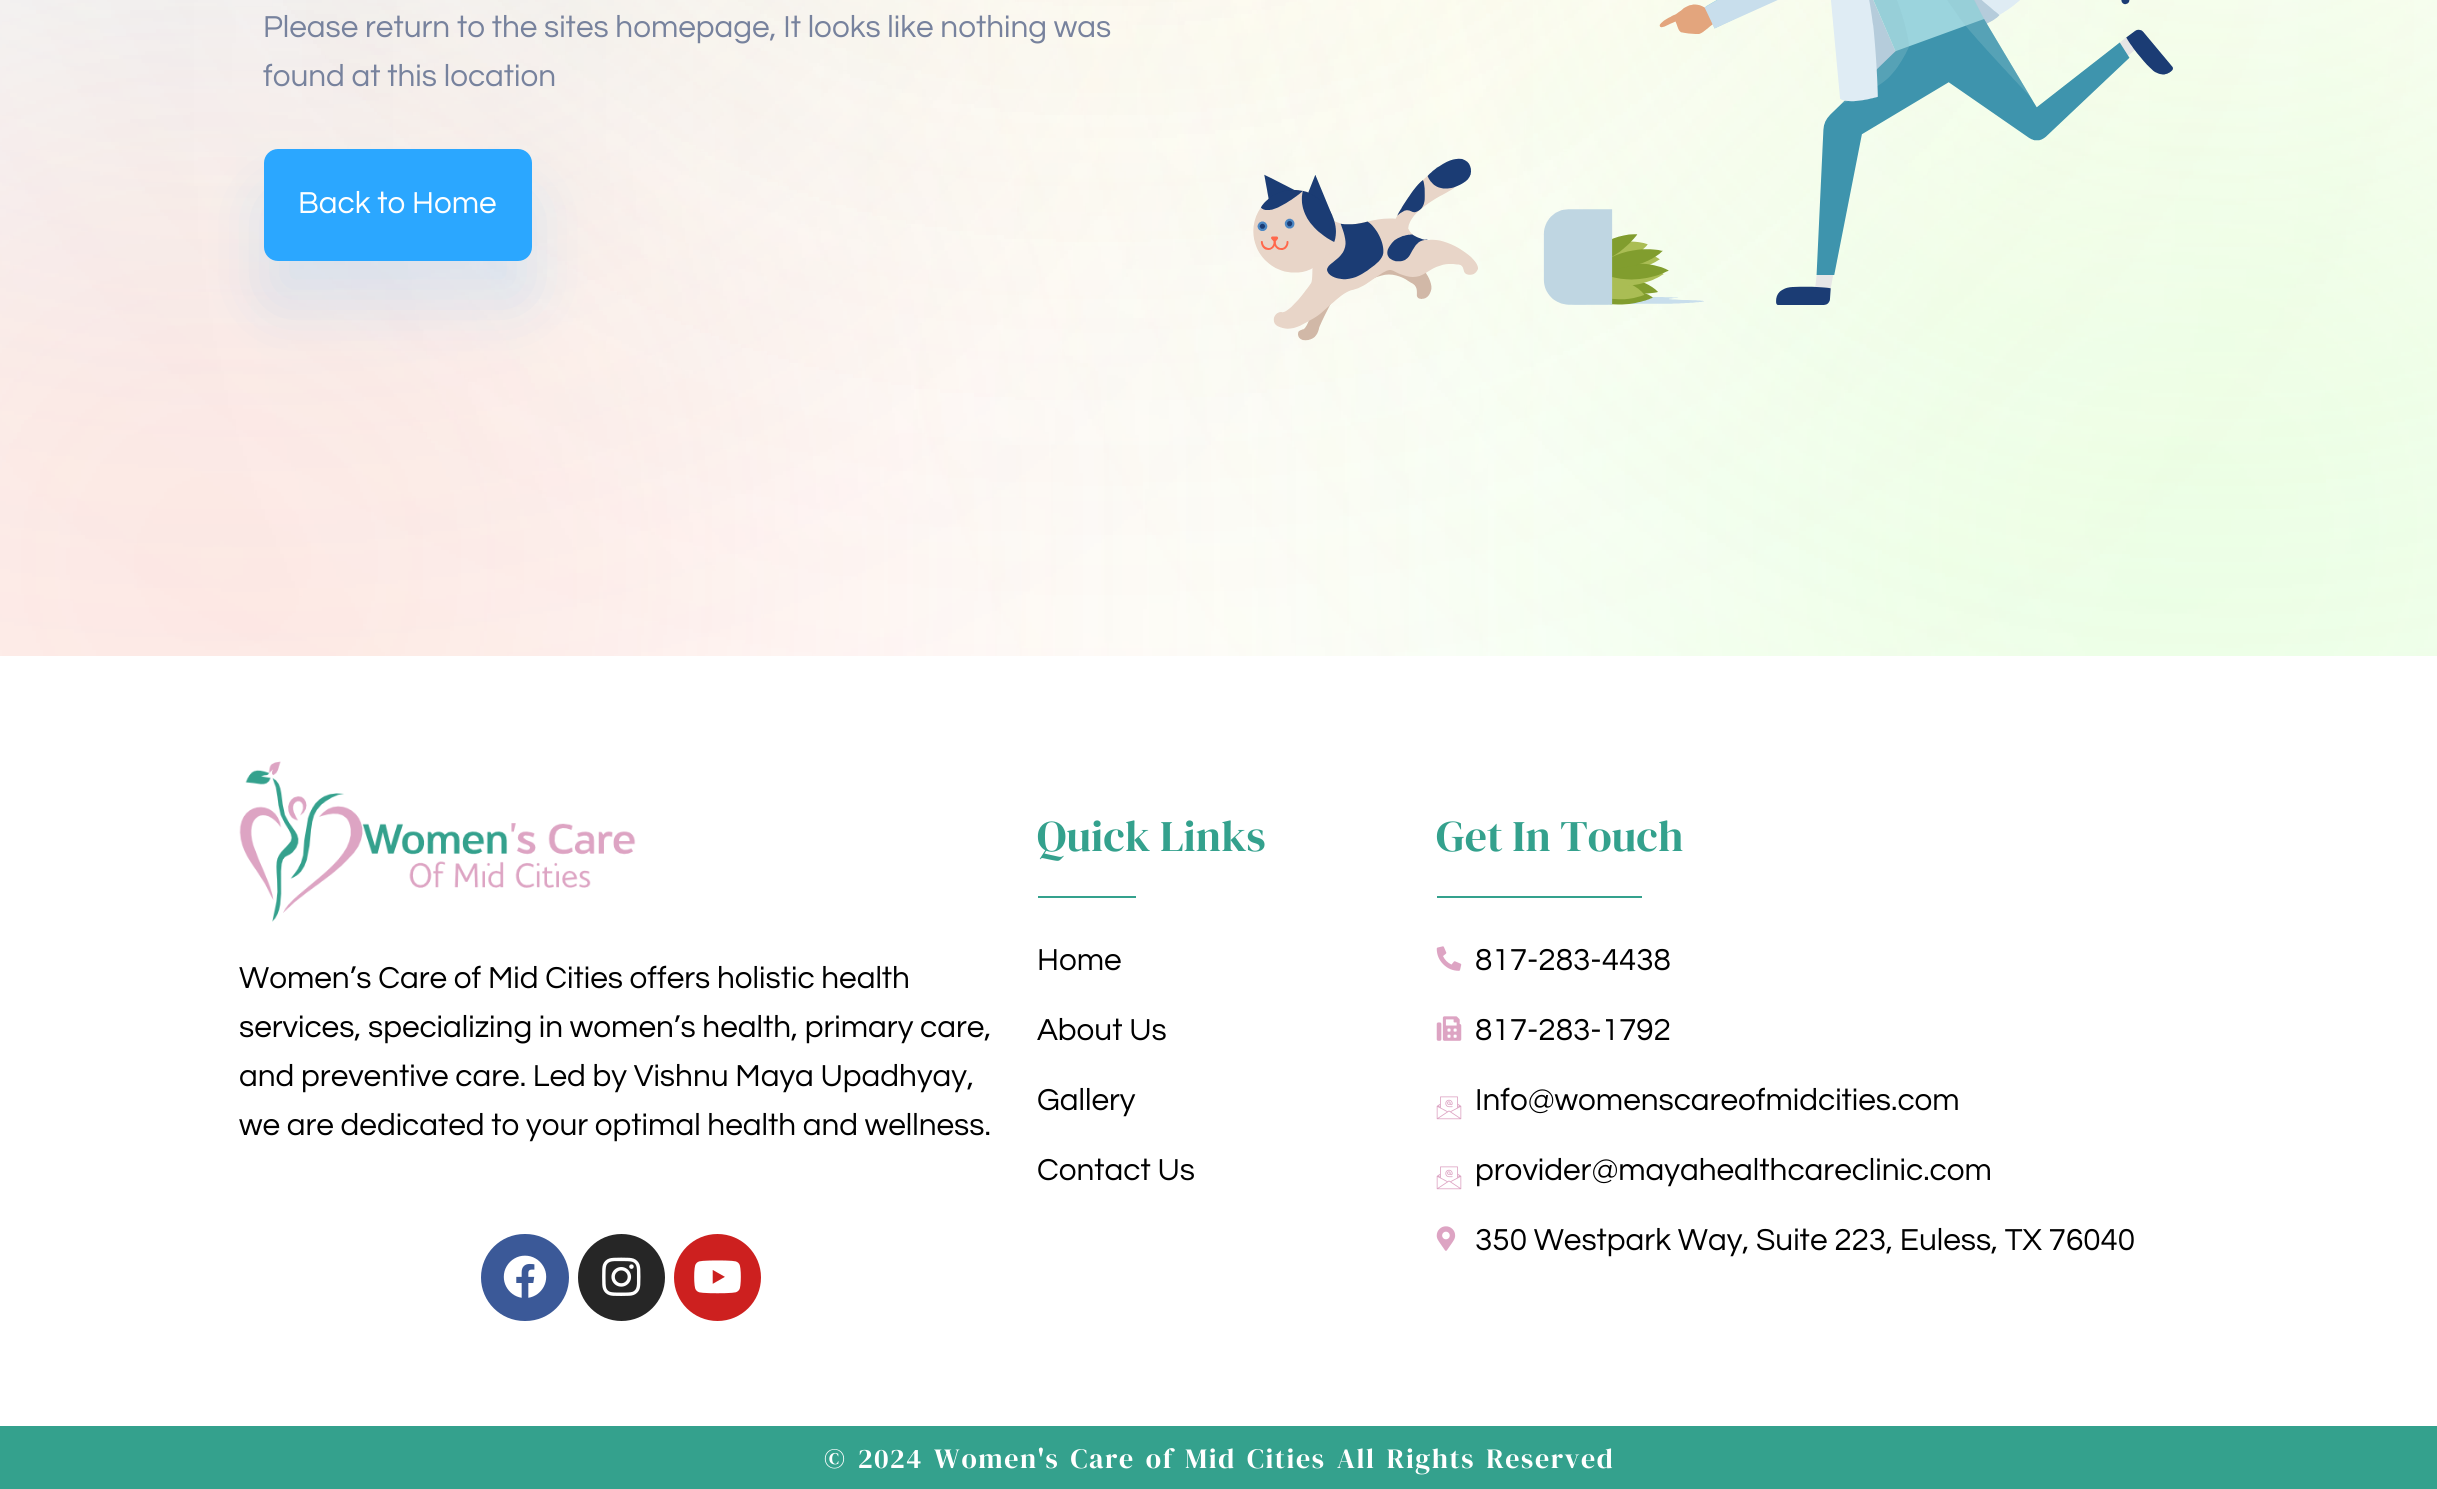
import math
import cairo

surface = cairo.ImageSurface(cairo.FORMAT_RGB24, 2437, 1489)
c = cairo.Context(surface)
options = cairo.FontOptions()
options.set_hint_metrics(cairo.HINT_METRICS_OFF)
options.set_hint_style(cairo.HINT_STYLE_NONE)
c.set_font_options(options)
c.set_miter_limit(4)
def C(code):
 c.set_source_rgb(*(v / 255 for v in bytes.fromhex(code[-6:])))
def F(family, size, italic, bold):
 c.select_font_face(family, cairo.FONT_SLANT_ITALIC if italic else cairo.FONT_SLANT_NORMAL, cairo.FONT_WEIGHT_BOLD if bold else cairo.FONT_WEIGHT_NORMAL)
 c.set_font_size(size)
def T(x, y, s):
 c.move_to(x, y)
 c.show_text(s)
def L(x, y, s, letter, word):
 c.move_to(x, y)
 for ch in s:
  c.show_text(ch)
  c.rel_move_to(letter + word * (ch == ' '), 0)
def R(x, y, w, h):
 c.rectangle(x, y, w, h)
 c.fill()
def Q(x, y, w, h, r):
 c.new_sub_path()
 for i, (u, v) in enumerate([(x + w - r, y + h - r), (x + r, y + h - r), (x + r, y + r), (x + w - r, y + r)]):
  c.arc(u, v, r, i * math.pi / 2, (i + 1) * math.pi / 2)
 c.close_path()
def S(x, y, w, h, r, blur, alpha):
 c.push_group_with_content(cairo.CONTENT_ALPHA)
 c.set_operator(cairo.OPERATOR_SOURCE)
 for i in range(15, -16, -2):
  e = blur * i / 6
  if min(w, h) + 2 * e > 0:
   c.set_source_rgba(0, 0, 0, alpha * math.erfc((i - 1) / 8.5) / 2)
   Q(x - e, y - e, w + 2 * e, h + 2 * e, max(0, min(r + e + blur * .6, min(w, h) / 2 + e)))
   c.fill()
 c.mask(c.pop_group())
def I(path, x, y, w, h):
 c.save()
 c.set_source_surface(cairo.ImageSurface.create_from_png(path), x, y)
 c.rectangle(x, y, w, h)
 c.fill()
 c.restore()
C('ffffff')
c.paint()
I('1.png',0,0,2437,656)
F('Questrial',31.5,0,0)
C('77829d')
T(263,37,'Please return to the sites homepage, It looks like nothing was')
T(263,86,'found at this location')
C('2aa7ff')
S(264,193,268,112,14,30.5,.15)
C('2ba7ff')
Q(264,149,268,112,14)
c.fill()
C('ffffff')
T(298,213,'Back to Home')
I('2.png',1253,0,920,341)
I('3.png',239,761,397,161)
C('000000')
T(239,988,'Women’s Care of Mid Cities offers holistic health')
T(239,1037,'services, specializing in women’s health, primary care,')
T(239,1086,'and preventive care. Led by Vishnu Maya Upadhyay,')
T(239,1135,'we are dedicated to your optimal health and wellness.')
C('3b5998')
Q(481,1234,88,87,43.5)
c.fill()
I('4.png',503,1255,44,43)
C('262626')
c.arc(621.5,1277.5,43.5,0,2 * math.pi)
c.fill()
I('5.png',602,1257,39,39)
C('cd201f')
c.arc(717.5,1277.5,43.5,0,2 * math.pi)
c.fill()
I('6.png',694,1260,47,34)
F('DM Serif Display',43.75,0,0)
C('34a18d')
T(1037,851,'Quick Links')
R(1038,896,98,2)
F('Questrial',31.5,0,0)
C('000000')
T(1037,970,'Home')
T(1037,1040,'About Us')
T(1037,1110,'Gallery')
T(1037,1180,'Contact Us')
F('DM Serif Display',43.75,0,0)
C('34a18d')
T(1436,851,'Get In Touch')
R(1437,896,205,2)
I('7.png',1436,946,26,25)
F('Questrial',31.5,0,0)
C('000000')
T(1475,970,'817-283-4438')
I('8.png',1436,1016,26,25)
T(1475,1040,'817-283-1792')
I('9.png',1436,1096,26,24)
T(1475,1110,'Info@womenscareofmidcities.com')
I('9.png',1436,1166,26,24)
T(1475,1180,'provider@mayahealthcareclinic.com')
I('10.png',1436,1226,20,25)
T(1475,1250,'350 Westpark Way, Suite 223, Euless, TX 76040')
C('34a18d')
R(0,1426,2437,63)
F('DM Serif Display',28,0,0)
C('ffffff')
L(824,1468,'© 2024 Women\'s Care of Mid Cities All Rights Reserved',1.57,3.5)
surface.write_to_png('o.png')
